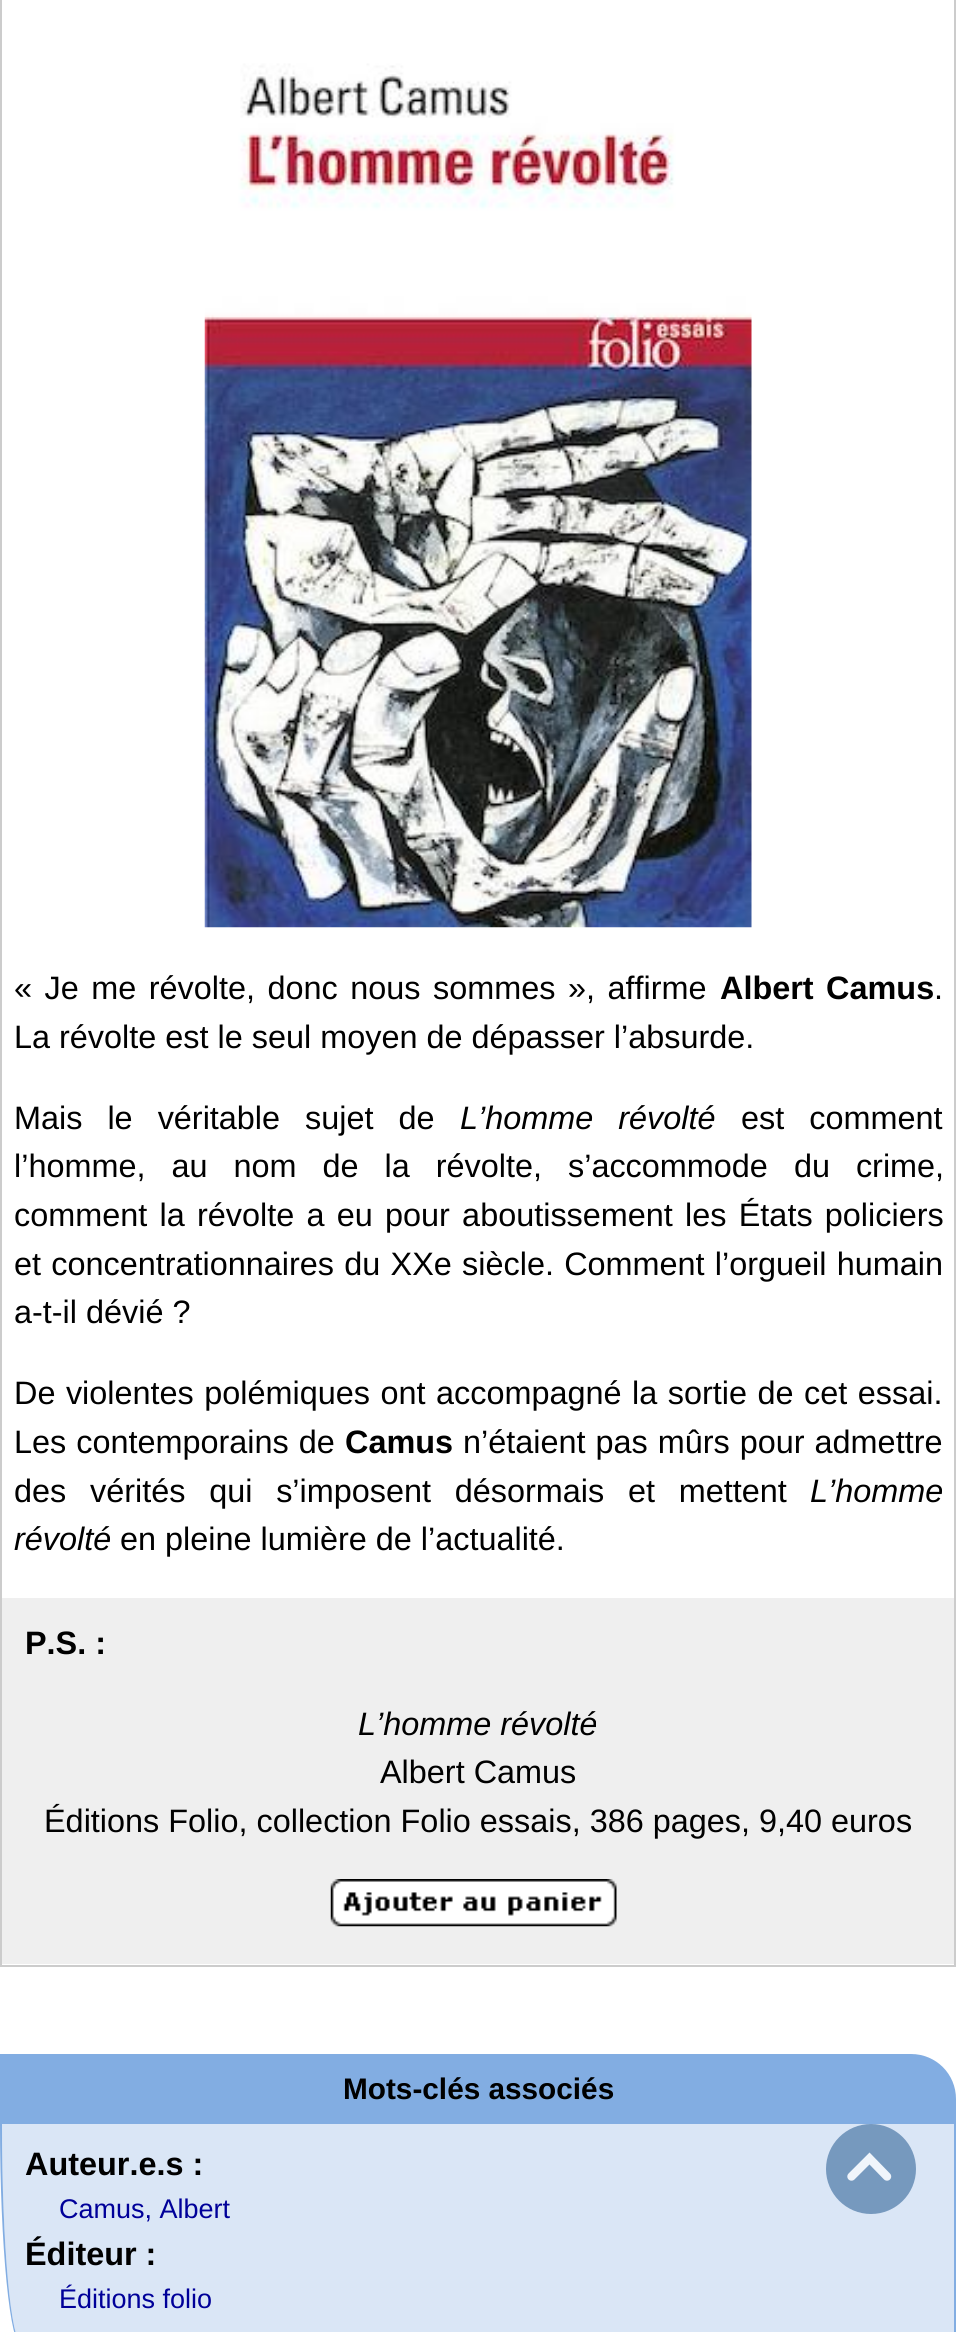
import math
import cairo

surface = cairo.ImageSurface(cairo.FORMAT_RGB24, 956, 2332)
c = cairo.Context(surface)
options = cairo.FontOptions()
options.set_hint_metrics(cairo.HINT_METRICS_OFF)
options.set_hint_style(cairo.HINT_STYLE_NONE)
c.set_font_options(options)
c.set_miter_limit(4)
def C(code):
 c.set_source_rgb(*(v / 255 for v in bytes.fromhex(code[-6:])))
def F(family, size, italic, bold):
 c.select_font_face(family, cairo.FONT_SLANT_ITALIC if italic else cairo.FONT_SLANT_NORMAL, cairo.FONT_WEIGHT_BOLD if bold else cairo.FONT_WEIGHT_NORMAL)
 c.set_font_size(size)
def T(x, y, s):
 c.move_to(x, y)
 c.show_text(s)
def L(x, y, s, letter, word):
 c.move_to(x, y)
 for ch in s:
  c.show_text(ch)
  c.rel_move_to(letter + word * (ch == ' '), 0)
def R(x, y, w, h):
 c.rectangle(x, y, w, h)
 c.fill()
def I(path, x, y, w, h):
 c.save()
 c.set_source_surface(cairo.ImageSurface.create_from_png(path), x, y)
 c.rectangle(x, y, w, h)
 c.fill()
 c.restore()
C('ffffff')
c.paint()
c.rectangle(1,-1,954,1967)
C('cccccc')
c.stroke()
I('1.png',204,63,548,865)
F('Liberation Sans',32.4,0,0)
C('000000')
L(14,999,'« Je me révolte, donc nous sommes », affirme',0,3.5)
F('Liberation Sans',32.4,0,1)
L(720,999,'Albert Camus',0,3.5)
F('Liberation Sans',32.4,0,0)
T(934,999,'.')
T(14,1048,'La révolte est le seul moyen de dépasser l’absurde.')
L(14,1129,'Mais le véritable sujet de',0,16)
F('Liberation Sans',32.4,1,0)
L(460,1129,'L’homme révolté',0,16)
F('Liberation Sans',32.4,0,0)
L(741,1129,'est comment',0,16)
L(14,1177,'l’homme, au nom de la révolte, s’accommode du crime,',0,17)
L(14,1226,'comment la révolte a eu pour aboutissement les États policiers',0,3.25)
L(14,1275,'et concentrationnaires du XXe siècle. Comment l’orgueil humain',0,1.25)
T(14,1323,'a-t-il dévié ?')
L(14,1404,'De violentes polémiques ont accompagné la sortie de cet essai.',0,1.5)
L(14,1453,'Les contemporains de',0,1)
F('Liberation Sans',32.4,0,1)
T(345,1453,'Camus')
F('Liberation Sans',32.4,0,0)
L(463,1453,'n’étaient pas mûrs pour admettre',0,1)
L(14,1502,'des vérités qui s’imposent désormais et mettent',0,14.75)
F('Liberation Sans',32.4,1,0)
T(810,1502,'L’homme')
T(14,1550,'révolté')
F('Liberation Sans',32.4,0,0)
T(120,1550,'en pleine lumière de l’actualité.')
C('efefef')
R(2,1598,952,366)
F('Liberation Sans',32.4,0,1)
C('000000')
T(25,1654,'P.S. :')
F('Liberation Sans',32.4,1,0)
T(358,1735,'L’homme révolté')
F('Liberation Sans',32.4,0,0)
T(380,1783,'Albert Camus')
T(44,1832,'Éditions Folio, collection Folio essais, 386 pages, 9,40 euros')
I('2.png',330,1879,287,48)
C('82ade2')
c.new_path()
c.move_to(0,2054)
c.line_to(911,2054)
c.curve_to(936,2054,956,2074,956,2099)
c.line_to(956,2124)
c.line_to(0,2124)
c.close_path()
c.fill()
F('Liberation Sans',29.75,0,1)
C('000000')
T(343,2099,'Mots-clés associés')
C('dae6f6')
c.new_path()
c.move_to(2,2124)
c.line_to(954,2124)
c.line_to(954,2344)
c.line_to(22,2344)
c.curve_to(11,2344,2,2246,2,2124)
c.close_path()
c.fill()
C('82ade2')
c.set_fill_rule(cairo.FILL_RULE_EVEN_ODD)
c.new_path()
c.move_to(0,2124)
c.line_to(956,2124)
c.line_to(956,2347)
c.line_to(22,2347)
c.curve_to(10,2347,0,2247,0,2124)
c.close_path()
c.move_to(2,2124)
c.line_to(954,2124)
c.line_to(954,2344)
c.line_to(22,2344)
c.curve_to(11,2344,2,2246,2,2124)
c.close_path()
c.fill()
F('Liberation Sans',32.4,0,1)
C('000000')
T(25,2175,'Auteur.e.s :')
F('Liberation Sans',27,0,0)
C('000099')
T(59,2218,'Camus, Albert')
F('Liberation Sans',32.4,0,1)
C('000000')
T(25,2265,'Éditeur :')
F('Liberation Sans',27,0,0)
C('000099')
T(59,2308,'Éditions folio')
C('7699be')
c.new_path()
c.arc(871,2169,45,0,2 * math.pi)
c.fill()
c.new_path()
c.move_to(851.5,2176.5)
c.line_to(869.5,2158.5)
c.line_to(887,2176.5)
C('f0f5fb')
c.set_line_width(8.4)
c.set_line_cap(cairo.LINE_CAP_ROUND)
c.stroke()
surface.write_to_png('o.png')
